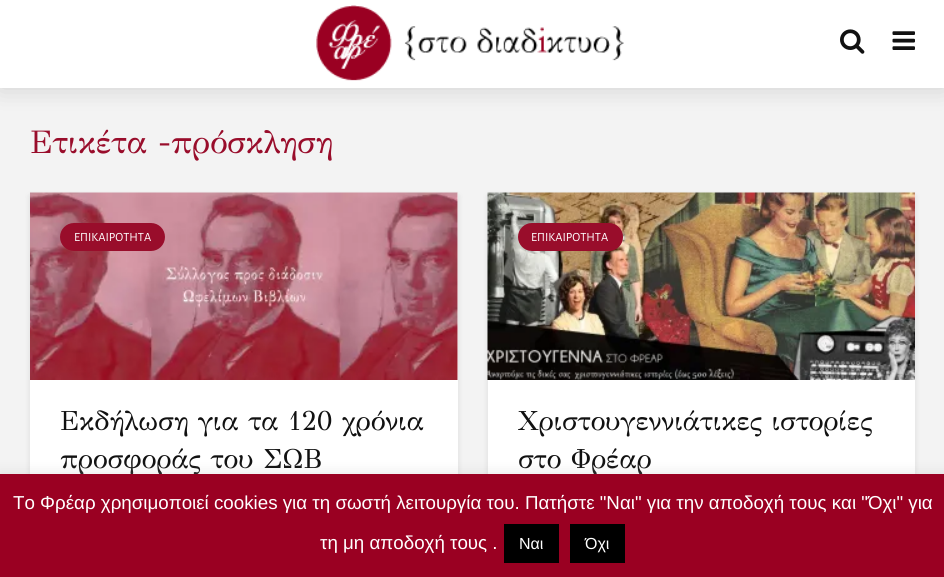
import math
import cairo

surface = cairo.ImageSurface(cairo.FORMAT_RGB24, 944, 577)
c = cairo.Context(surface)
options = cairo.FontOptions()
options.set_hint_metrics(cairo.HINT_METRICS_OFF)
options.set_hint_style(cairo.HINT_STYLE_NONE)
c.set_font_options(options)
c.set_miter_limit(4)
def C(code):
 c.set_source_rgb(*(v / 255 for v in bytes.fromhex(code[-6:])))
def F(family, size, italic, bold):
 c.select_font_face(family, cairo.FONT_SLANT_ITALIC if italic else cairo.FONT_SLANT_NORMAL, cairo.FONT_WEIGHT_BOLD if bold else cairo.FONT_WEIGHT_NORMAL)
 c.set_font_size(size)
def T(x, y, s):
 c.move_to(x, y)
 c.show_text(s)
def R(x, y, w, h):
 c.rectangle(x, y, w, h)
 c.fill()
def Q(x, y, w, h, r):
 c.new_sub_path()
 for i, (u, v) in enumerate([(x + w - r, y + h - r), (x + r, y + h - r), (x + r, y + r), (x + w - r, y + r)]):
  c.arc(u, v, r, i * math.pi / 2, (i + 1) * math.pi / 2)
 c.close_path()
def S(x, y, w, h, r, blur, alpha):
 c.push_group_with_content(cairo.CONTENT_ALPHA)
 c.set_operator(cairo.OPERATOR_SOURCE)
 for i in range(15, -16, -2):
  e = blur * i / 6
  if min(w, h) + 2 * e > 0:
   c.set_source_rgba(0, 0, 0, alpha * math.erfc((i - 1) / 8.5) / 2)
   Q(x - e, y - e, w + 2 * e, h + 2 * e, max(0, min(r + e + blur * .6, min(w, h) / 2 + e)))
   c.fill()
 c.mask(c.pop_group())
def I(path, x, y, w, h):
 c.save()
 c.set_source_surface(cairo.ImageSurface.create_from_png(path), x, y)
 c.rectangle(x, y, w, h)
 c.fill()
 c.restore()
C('f3f3f3')
c.paint()
C('000000')
S(0,0,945,88,0,12.5,.15)
C('ffffff')
R(0,0,944,88)
I('1.png',316,5,308,76)
I('2.png',840,29,25,25)
I('3.png',892,31,23,19)
F('GFS Didot',32.5,0,0)
C('990d2b')
T(30,153,'Ετικέτα -πρόσκληση')
C('000101')
S(30,196,428,375,0,3,.1)
C('ffffff')
R(30,193,428,281)
I('4.png',30,192,428,188)
C('990d2b')
Q(60,223,105,28,14)
c.fill()
F('Alegreya Sans',12.5,0,0)
C('ffffff')
T(74,241,'ΕΠΙΚΑΙΡΟΤΗΤΑ')
F('GFS Didot',27.5,0,0)
C('111111')
T(60,430,'Εκδήλωση για τα 120 χρόνια')
T(60,468,'προσφοράς του ΣΩΒ')
C('000101')
S(488,196,427,375,0,3,.1)
C('ffffff')
R(488,380,427,94)
I('5.png',487,192,428,188)
C('990d2b')
Q(518,223,105,28,14)
c.fill()
F('Alegreya Sans',12.5,0,0)
C('ffffff')
T(531,241,'ΕΠΙΚΑΙΡΟΤΗΤΑ')
F('GFS Didot',27.5,0,0)
C('111111')
T(518,430,'Χριστουγεννιάτικες ιστορίες')
T(518,468,'στο Φρέαρ')
C('acabab')
S(0,473,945,103,0,6,.3)
C('9a0022')
R(0,474,944,103)
F('Liberation Sans',18.75,0,0)
C('ffffff')
T(13,509,'Το Φρέαρ χρησιμοποιεί cookies για τη σωστή λειτουργία του. Πατήστε "Ναι" για την αποδοχή τους και "Όχι" για')
T(320,549,'τη μη αποδοχή τους .')
C('000000')
R(504,524,55,39)
F('Liberation Sans',16,0,0)
C('ffffff')
T(519,549,'Ναι')
C('000000')
R(570,524,55,39)
C('ffffff')
T(585,549,'Όχι')
surface.write_to_png('o.png')
